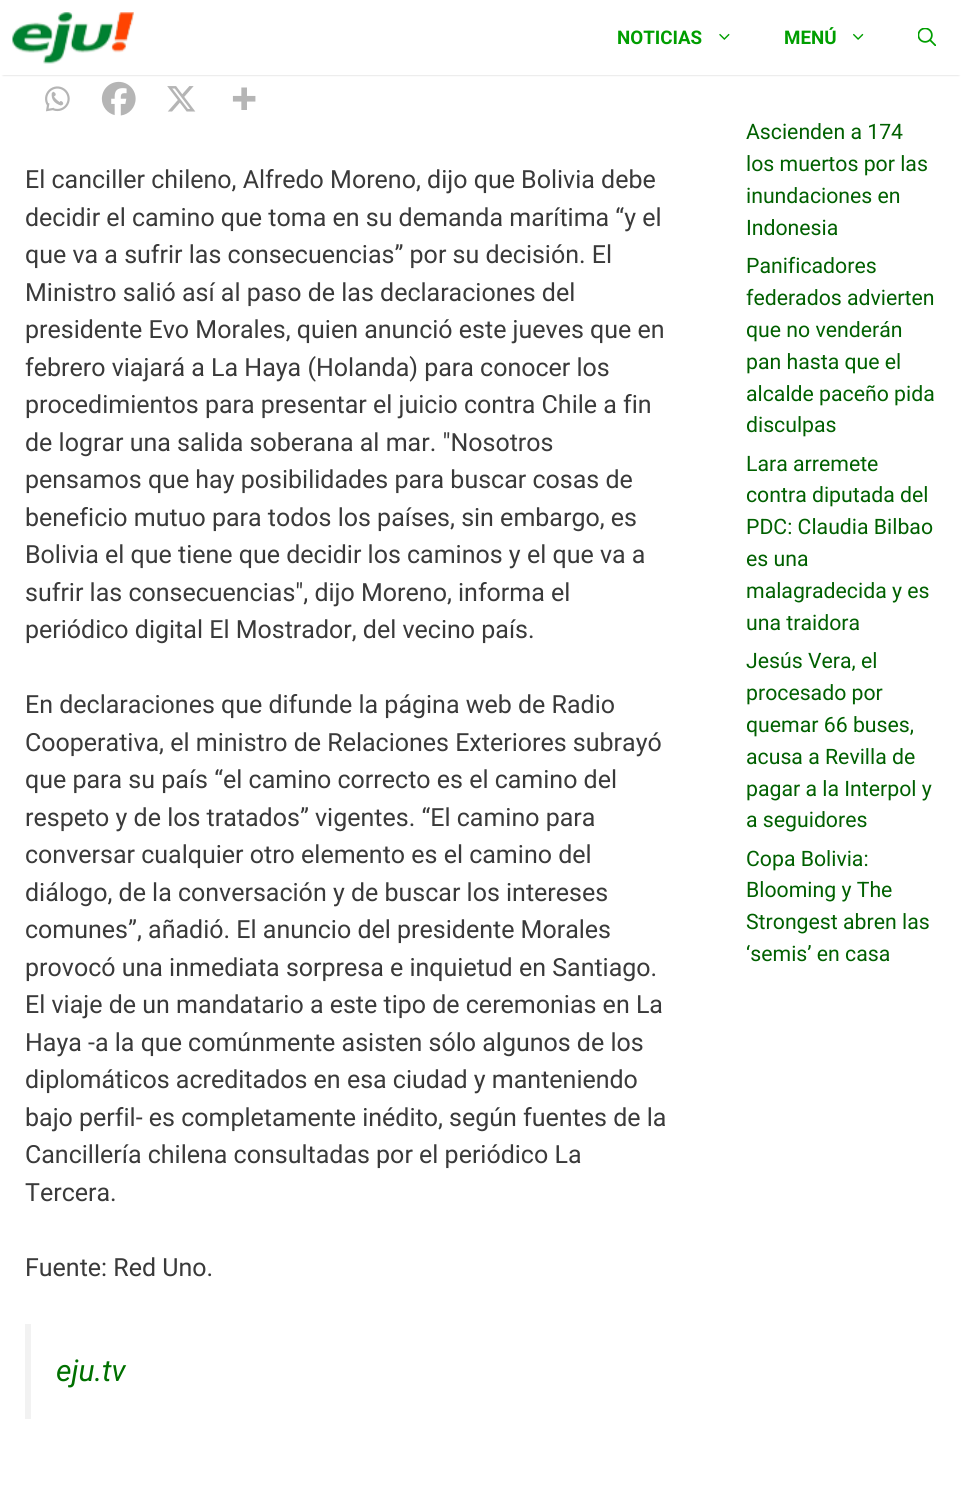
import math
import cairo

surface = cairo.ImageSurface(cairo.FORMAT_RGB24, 961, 1509)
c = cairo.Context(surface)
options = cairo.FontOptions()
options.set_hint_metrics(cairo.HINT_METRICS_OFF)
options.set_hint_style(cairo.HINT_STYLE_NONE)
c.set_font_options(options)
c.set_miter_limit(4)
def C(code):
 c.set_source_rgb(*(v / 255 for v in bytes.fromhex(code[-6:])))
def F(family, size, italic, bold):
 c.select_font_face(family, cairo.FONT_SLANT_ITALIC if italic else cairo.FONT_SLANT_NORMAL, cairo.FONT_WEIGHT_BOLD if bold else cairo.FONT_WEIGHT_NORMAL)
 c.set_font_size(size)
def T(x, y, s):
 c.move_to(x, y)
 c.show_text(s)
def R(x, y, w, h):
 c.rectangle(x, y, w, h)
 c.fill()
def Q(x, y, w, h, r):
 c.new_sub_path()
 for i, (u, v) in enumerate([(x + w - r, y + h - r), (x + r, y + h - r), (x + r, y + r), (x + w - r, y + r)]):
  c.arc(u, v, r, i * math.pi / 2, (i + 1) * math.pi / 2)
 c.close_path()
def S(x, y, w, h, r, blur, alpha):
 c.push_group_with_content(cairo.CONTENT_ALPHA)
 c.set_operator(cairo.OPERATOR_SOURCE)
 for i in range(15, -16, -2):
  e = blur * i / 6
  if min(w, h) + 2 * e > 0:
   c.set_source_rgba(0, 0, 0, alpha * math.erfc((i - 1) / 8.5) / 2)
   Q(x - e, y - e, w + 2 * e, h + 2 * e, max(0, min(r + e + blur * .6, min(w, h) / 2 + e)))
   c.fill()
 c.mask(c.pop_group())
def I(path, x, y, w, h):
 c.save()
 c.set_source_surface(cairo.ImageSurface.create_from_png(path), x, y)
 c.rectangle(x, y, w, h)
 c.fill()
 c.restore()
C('ffffff')
c.paint()
C('000000')
S(3,5,956,70,0,1,.2)
C('ffffff')
R(1,3,960,72)
I('1.png',12,12,122,52)
F('Roboto',18.75,0,1)
C('009e00')
T(617,44,'NOTICIAS')
I('2.png',719,33,11,7)
T(784,44,'MENÚ')
I('3.png',853,33,11,7)
I('4.png',918,28,18,18)
I('5.png',45,86,25,26)
I('6.png',101,81,35,35)
I('7.png',167,86,29,26)
I('8.png',232,87,24,23)
F('Roboto',25,0,0)
C('3a3a3a')
T(25,188,'El canciller chileno, Alfredo Moreno, dijo que Bolivia debe')
T(25,226,'decidir el camino que toma en su demanda marítima “y el')
T(25,263,'que va a sufrir las consecuencias” por su decisión. El')
T(25,301,'Ministro salió así al paso de las declaraciones del')
T(25,338,'presidente Evo Morales, quien anunció este jueves que en')
T(25,376,'febrero viajará a La Haya (Holanda) para conocer los')
T(25,413,'procedimientos para presentar el juicio contra Chile a fin')
T(25,451,'de lograr una salida soberana al mar. "Nosotros')
T(25,488,'pensamos que hay posibilidades para buscar cosas de')
T(25,526,'beneficio mutuo para todos los países, sin embargo, es')
T(25,563,'Bolivia el que tiene que decidir los caminos y el que va a')
T(25,601,'sufrir las consecuencias", dijo Moreno, informa el')
T(25,638,'periódico digital El Mostrador, del vecino país.')
T(25,713,'En declaraciones que difunde la página web de Radio')
T(25,751,'Cooperativa, el ministro de Relaciones Exteriores subrayó')
T(25,788,'que para su país “el camino correcto es el camino del')
T(25,826,'respeto y de los tratados” vigentes. “El camino para')
T(25,863,'conversar cualquier otro elemento es el camino del')
T(25,901,'diálogo, de la conversación y de buscar los intereses')
T(25,938,'comunes”, añadió. El anuncio del presidente Morales')
T(25,976,'provocó una inmediata sorpresa e inquietud en Santiago.')
T(25,1013,'El viaje de un mandatario a este tipo de ceremonias en La')
T(25,1051,'Haya -a la que comúnmente asisten sólo algunos de los')
T(25,1088,'diplomáticos acreditados en esa ciudad y manteniendo')
T(25,1126,'bajo perfil- es completamente inédito, según fuentes de la')
T(25,1163,'Cancillería chilena consultadas por el periódico La')
T(25,1201,'Tercera.')
T(25,1276,'Fuente: Red Uno.')
C('f2f2f2')
R(25,1324,6,95)
F('Roboto',30,1,0)
C('007000')
T(56,1381,'eju.tv')
F('Roboto',21.25,0,0)
C('006000')
T(746,139,'Ascienden a 174')
T(746,171,'los muertos por las')
T(746,203,'inundaciones en')
T(746,235,'Indonesia')
T(746,273,'Panificadores')
T(746,305,'federados advierten')
T(746,337,'que no venderán')
T(746,369,'pan hasta que el')
T(746,401,'alcalde paceño pida')
T(746,432,'disculpas')
T(746,471,'Lara arremete')
T(746,502,'contra diputada del')
T(746,534,'PDC: Claudia Bilbao')
T(746,566,'es una')
T(746,598,'malagradecida y es')
T(746,630,'una traidora')
T(746,668,'Jesús Vera, el')
T(746,700,'procesado por')
T(746,732,'quemar 66 buses,')
T(746,764,'acusa a Revilla de')
T(746,796,'pagar a la Interpol y')
T(746,827,'a seguidores')
T(746,866,'Copa Bolivia:')
T(746,897,'Blooming y The')
T(746,929,'Strongest abren las')
T(746,961,'‘semis’ en casa')
surface.write_to_png('o.png')
